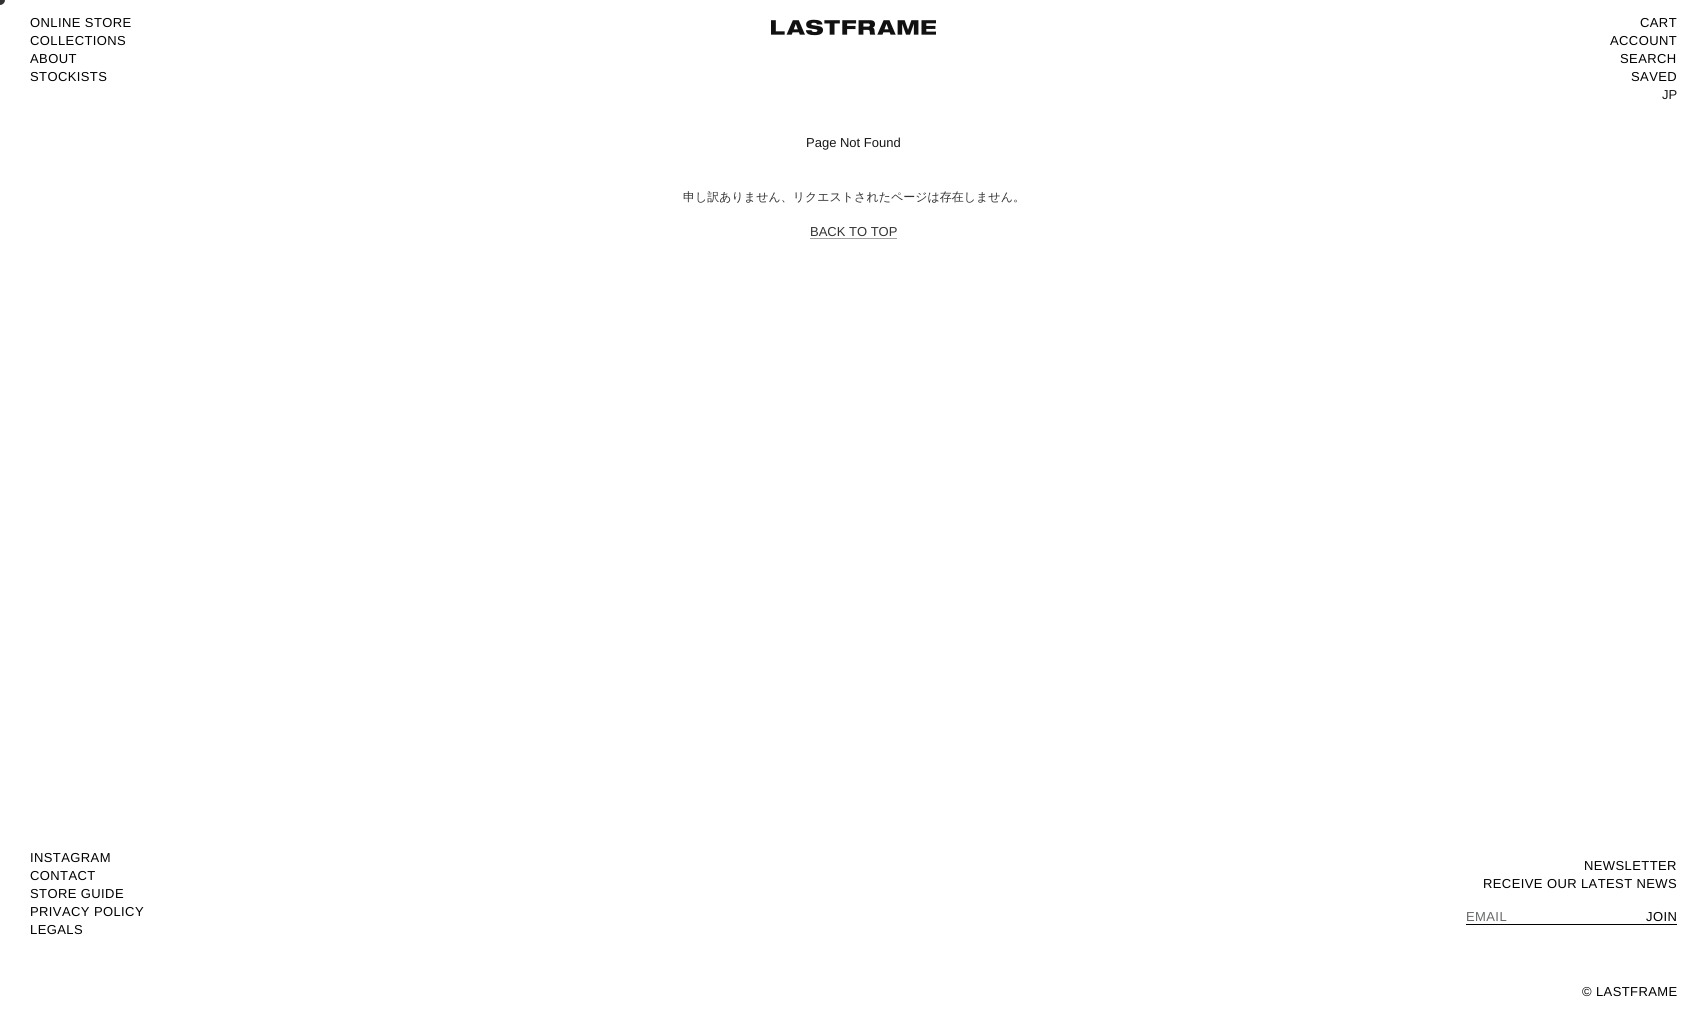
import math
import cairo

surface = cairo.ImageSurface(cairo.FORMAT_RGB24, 1707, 1031)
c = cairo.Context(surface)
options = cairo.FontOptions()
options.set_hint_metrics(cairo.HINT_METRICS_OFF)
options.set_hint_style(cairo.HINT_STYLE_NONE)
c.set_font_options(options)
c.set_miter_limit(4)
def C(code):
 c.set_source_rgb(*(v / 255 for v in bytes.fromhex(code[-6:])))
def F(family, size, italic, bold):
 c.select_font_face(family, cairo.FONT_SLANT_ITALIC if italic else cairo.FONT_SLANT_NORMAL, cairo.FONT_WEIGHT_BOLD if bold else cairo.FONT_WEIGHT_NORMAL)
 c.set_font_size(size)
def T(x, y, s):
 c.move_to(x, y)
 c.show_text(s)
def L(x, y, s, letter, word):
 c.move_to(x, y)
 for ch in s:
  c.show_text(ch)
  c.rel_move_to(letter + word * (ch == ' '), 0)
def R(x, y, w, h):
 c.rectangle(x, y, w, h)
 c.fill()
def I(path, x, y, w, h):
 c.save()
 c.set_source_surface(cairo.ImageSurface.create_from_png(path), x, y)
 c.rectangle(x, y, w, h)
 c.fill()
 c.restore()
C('ffffff')
c.paint()
C('333333')
c.new_path()
c.move_to(-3.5,-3.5)
c.curve_to(1,-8,8,-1,3.5,3.5)
c.curve_to(-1,8,-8,1,-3.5,-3.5)
c.close_path()
c.fill()
F('Liberation Sans',13,0,0)
C('000000')
L(30,27,'ONLINE STORE',.4,0)
L(30,45,'COLLECTIONS',.4,0)
L(30,63,'ABOUT',.4,0)
L(30,81,'STOCKISTS',.4,0)
I('1.png',771,19,165,17)
L(1640,27,'CART',.4,0)
L(1610,45,'ACCOUNT',.4,0)
L(1620,63,'SEARCH',.4,0)
L(1631,81,'SAVED',.4,0)
C('171717')
T(1662,99,'JP')
T(806,147,'Page Not Found')
F('WenQuanYi Zen Hei Medium',12,0,0)
C('333333')
T(683,201,'申し訳ありません、リクエストされたページは存在しません。')
F('Liberation Sans',13,0,0)
T(810,236,'BACK TO TOP')
C('a2a2a2')
R(810,238,87,1)
C('000000')
L(30,862,'INSTAGRAM',.4,0)
L(30,880,'CONTACT',.4,0)
L(30,898,'STORE GUIDE',.4,0)
L(30,916,'PRIVACY POLICY',.4,0)
L(30,934,'LEGALS',.4,0)
L(1584,870,'NEWSLETTER',.4,0)
L(1483,888,'RECEIVE OUR LATEST NEWS',.4,0)
R(1466,924,211,1)
C('676869')
L(1466,921,'EMAIL',.4,0)
C('000000')
L(1646,921,'JOIN',.4,0)
L(1582,996,'© LASTFRAME',.4,0)
surface.write_to_png('o.png')
